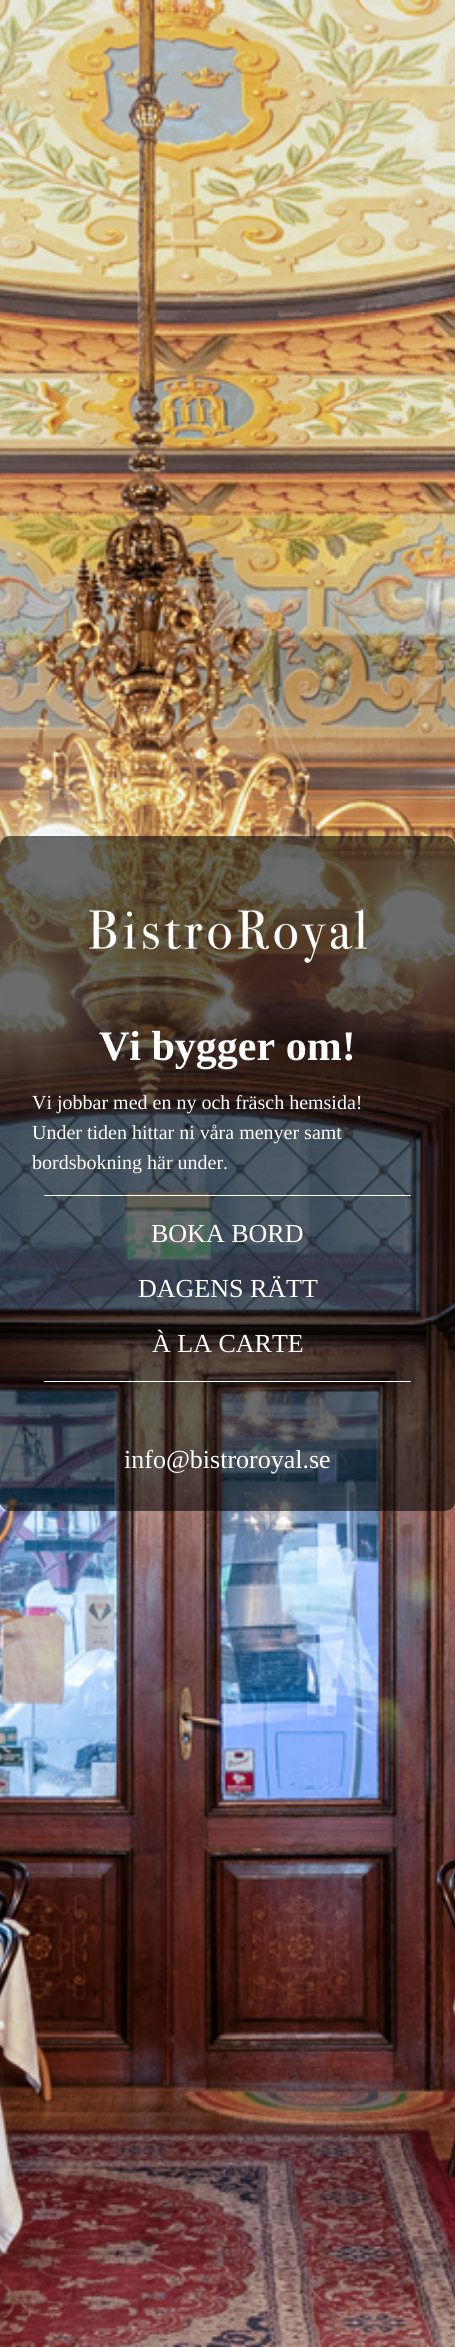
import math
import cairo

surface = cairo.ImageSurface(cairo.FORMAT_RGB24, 455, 2347)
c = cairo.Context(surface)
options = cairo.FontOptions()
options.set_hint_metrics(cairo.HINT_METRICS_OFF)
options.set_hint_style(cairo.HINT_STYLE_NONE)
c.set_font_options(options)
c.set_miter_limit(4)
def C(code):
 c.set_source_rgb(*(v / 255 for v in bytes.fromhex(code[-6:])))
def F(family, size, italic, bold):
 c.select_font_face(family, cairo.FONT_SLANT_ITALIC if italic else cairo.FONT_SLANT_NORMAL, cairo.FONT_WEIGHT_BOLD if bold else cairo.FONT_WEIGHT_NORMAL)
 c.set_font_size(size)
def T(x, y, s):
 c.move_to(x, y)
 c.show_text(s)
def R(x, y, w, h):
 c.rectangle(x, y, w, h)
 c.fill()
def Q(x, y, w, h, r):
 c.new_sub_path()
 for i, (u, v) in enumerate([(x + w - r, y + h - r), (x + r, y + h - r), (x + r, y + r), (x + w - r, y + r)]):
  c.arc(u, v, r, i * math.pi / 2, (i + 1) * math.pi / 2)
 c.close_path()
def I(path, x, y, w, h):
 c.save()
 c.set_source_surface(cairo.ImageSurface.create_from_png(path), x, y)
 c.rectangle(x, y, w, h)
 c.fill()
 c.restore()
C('ffffff')
c.paint()
I('1.png',0,0,455,2347)
c.set_source_rgba(0,0,0,0.58)
Q(0,836,455,675,10)
c.fill()
I('2.png',89,909,278,54)
F('Liberation Serif',42,0,1)
C('ffffff')
T(99,1060,'Vi bygger om!')
F('Liberation Serif',20,0,0)
T(32,1109,'Vi jobbar med en ny och fräsch hemsida!')
T(32,1139,'Under tiden hittar ni våra menyer samt')
T(32,1169,'bordsbokning här under.')
R(44,1195,367,1)
F('Liberation Serif',26,0,0)
T(151,1242,'BOKA BORD')
T(138,1297,'DAGENS RÄTT')
T(152,1352,'À LA CARTE')
R(44,1381,367,1)
T(124,1468,'info@bistroroyal.se')
surface.write_to_png('o.png')
